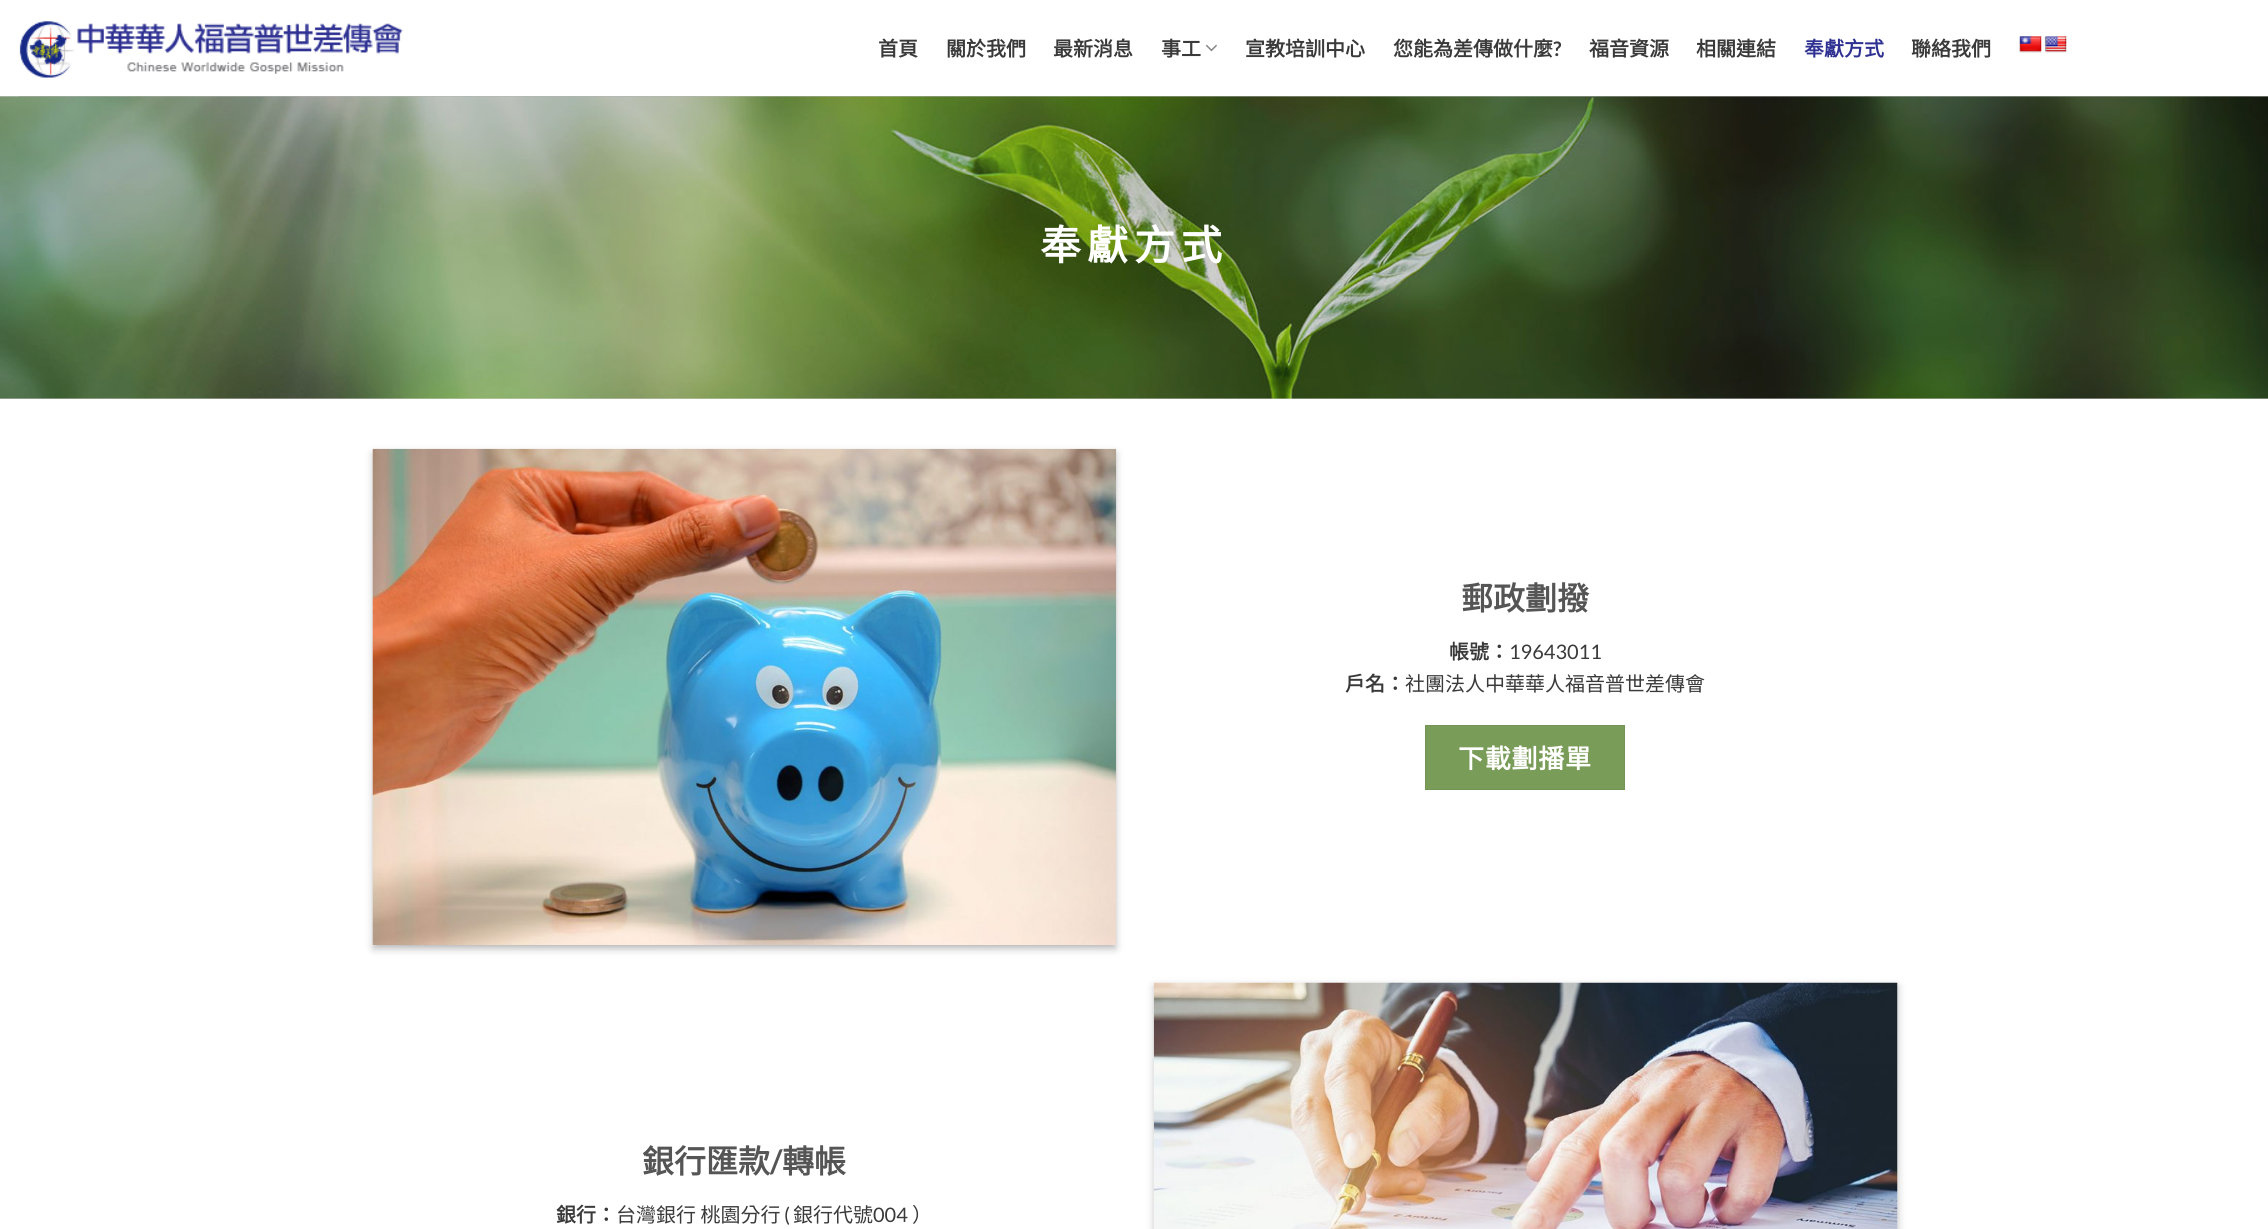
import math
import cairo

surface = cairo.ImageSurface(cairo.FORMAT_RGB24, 2268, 1229)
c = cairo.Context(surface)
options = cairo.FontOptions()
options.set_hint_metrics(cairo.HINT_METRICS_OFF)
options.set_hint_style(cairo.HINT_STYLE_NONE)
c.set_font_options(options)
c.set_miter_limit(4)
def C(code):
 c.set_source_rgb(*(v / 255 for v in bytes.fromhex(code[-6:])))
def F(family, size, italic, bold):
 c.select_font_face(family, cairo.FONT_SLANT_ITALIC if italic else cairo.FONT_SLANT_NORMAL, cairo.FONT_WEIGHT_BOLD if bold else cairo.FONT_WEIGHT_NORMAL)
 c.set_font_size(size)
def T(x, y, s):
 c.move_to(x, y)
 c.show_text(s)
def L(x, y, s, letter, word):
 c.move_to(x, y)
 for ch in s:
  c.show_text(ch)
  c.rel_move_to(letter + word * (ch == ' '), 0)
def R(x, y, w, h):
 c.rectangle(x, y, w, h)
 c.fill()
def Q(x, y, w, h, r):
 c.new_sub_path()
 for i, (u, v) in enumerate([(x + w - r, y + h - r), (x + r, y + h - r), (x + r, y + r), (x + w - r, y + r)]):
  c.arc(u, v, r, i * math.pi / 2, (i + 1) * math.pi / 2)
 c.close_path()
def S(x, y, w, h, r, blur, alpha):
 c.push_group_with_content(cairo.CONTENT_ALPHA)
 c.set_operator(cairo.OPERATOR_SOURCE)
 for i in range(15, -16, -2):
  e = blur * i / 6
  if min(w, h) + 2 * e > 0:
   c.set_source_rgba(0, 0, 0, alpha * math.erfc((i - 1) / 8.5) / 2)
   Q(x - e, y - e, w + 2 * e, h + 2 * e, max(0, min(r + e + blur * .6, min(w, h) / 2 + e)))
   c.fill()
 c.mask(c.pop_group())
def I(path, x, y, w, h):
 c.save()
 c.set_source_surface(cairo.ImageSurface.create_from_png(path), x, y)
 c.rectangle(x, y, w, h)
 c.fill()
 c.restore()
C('ffffff')
c.paint()
C('d4d4d4')
R(0,96,2268,303)
I('1.png',19,21,384,57)
F('Noto Sans CJK TC',20,0,1)
C('3a3a3a')
T(878,56,'首頁')
T(946,56,'關於我們')
T(1053,56,'最新消息')
T(1161,56,'事工')
I('2.png',1205,44,12,8)
T(1245,56,'宣教培訓中心')
T(1393,56,'您能為差傳做什麼')
F('Lato',20,0,1)
T(1553,56,'?')
F('Noto Sans CJK TC',20,0,1)
T(1589,56,'福音資源')
T(1696,56,'相關連結')
C('2e3192')
T(1804,56,'奉獻方式')
C('3a3a3a')
T(1911,56,'聯絡我們')
I('3.png',2019,36,23,17)
I('4.png',2044,36,23,17)
I('5.png',0,96,2268,303)
c.set_source_rgba(0.227,0.227,0.227,0.1)
R(19,96,2231,1)
F('Noto Sans CJK TC',41,0,1)
C('ffffff')
L(1040,260,'奉獻方式',6,0)
C('000000')
S(373,453,743,496,0,4,.23)
S(378,458,733,486,0,4,.16)
I('6.png',372,448,745,497)
F('Noto Sans CJK TC',32,0,1)
C('555555')
T(1461,610,'郵政劃撥')
F('Noto Sans CJK TC',20,0,1)
C('3a3a3a')
T(1449,659,'帳號：')
F('Lato',20,0,0)
T(1509,659,'19643011')
F('Noto Sans CJK TC',20,0,1)
T(1345,691,'戶名：')
F('Noto Sans CJK TC',20,0,0)
T(1405,691,'社團法人中華華人福音普世差傳會')
C('7a9c59')
c.rectangle(1425.5,725.5,199,64)
c.fill_preserve()
C('749455')
c.set_line_width(1)
c.stroke()
F('Noto Sans CJK TC',26,0,1)
C('ffffff')
L(1458,768,'下載劃播單',.75,0)
F('Noto Sans CJK TC',32,0,1)
C('555555')
T(642,1173,'銀行匯款')
F('Lato',32,0,1)
T(770,1173,'/')
F('Noto Sans CJK TC',32,0,1)
T(782,1173,'轉帳')
F('Noto Sans CJK TC',20,0,1)
C('3a3a3a')
T(556,1222,'銀行：')
F('Noto Sans CJK TC',20,0,0)
T(616,1222,'台灣銀行 桃園分行')
F('Lato',20,0,0)
T(784,1222,'(')
F('Noto Sans CJK TC',20,0,0)
T(793,1222,'銀行代號')
F('Lato',20,0,0)
T(873,1222,'004')
F('Noto Sans CJK TC',20,0,0)
T(912,1222,'）')
C('000000')
S(1154,986,744,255,0,4,.23)
I('7.png',1153,982,745,247)
surface.write_to_png('o.png')
